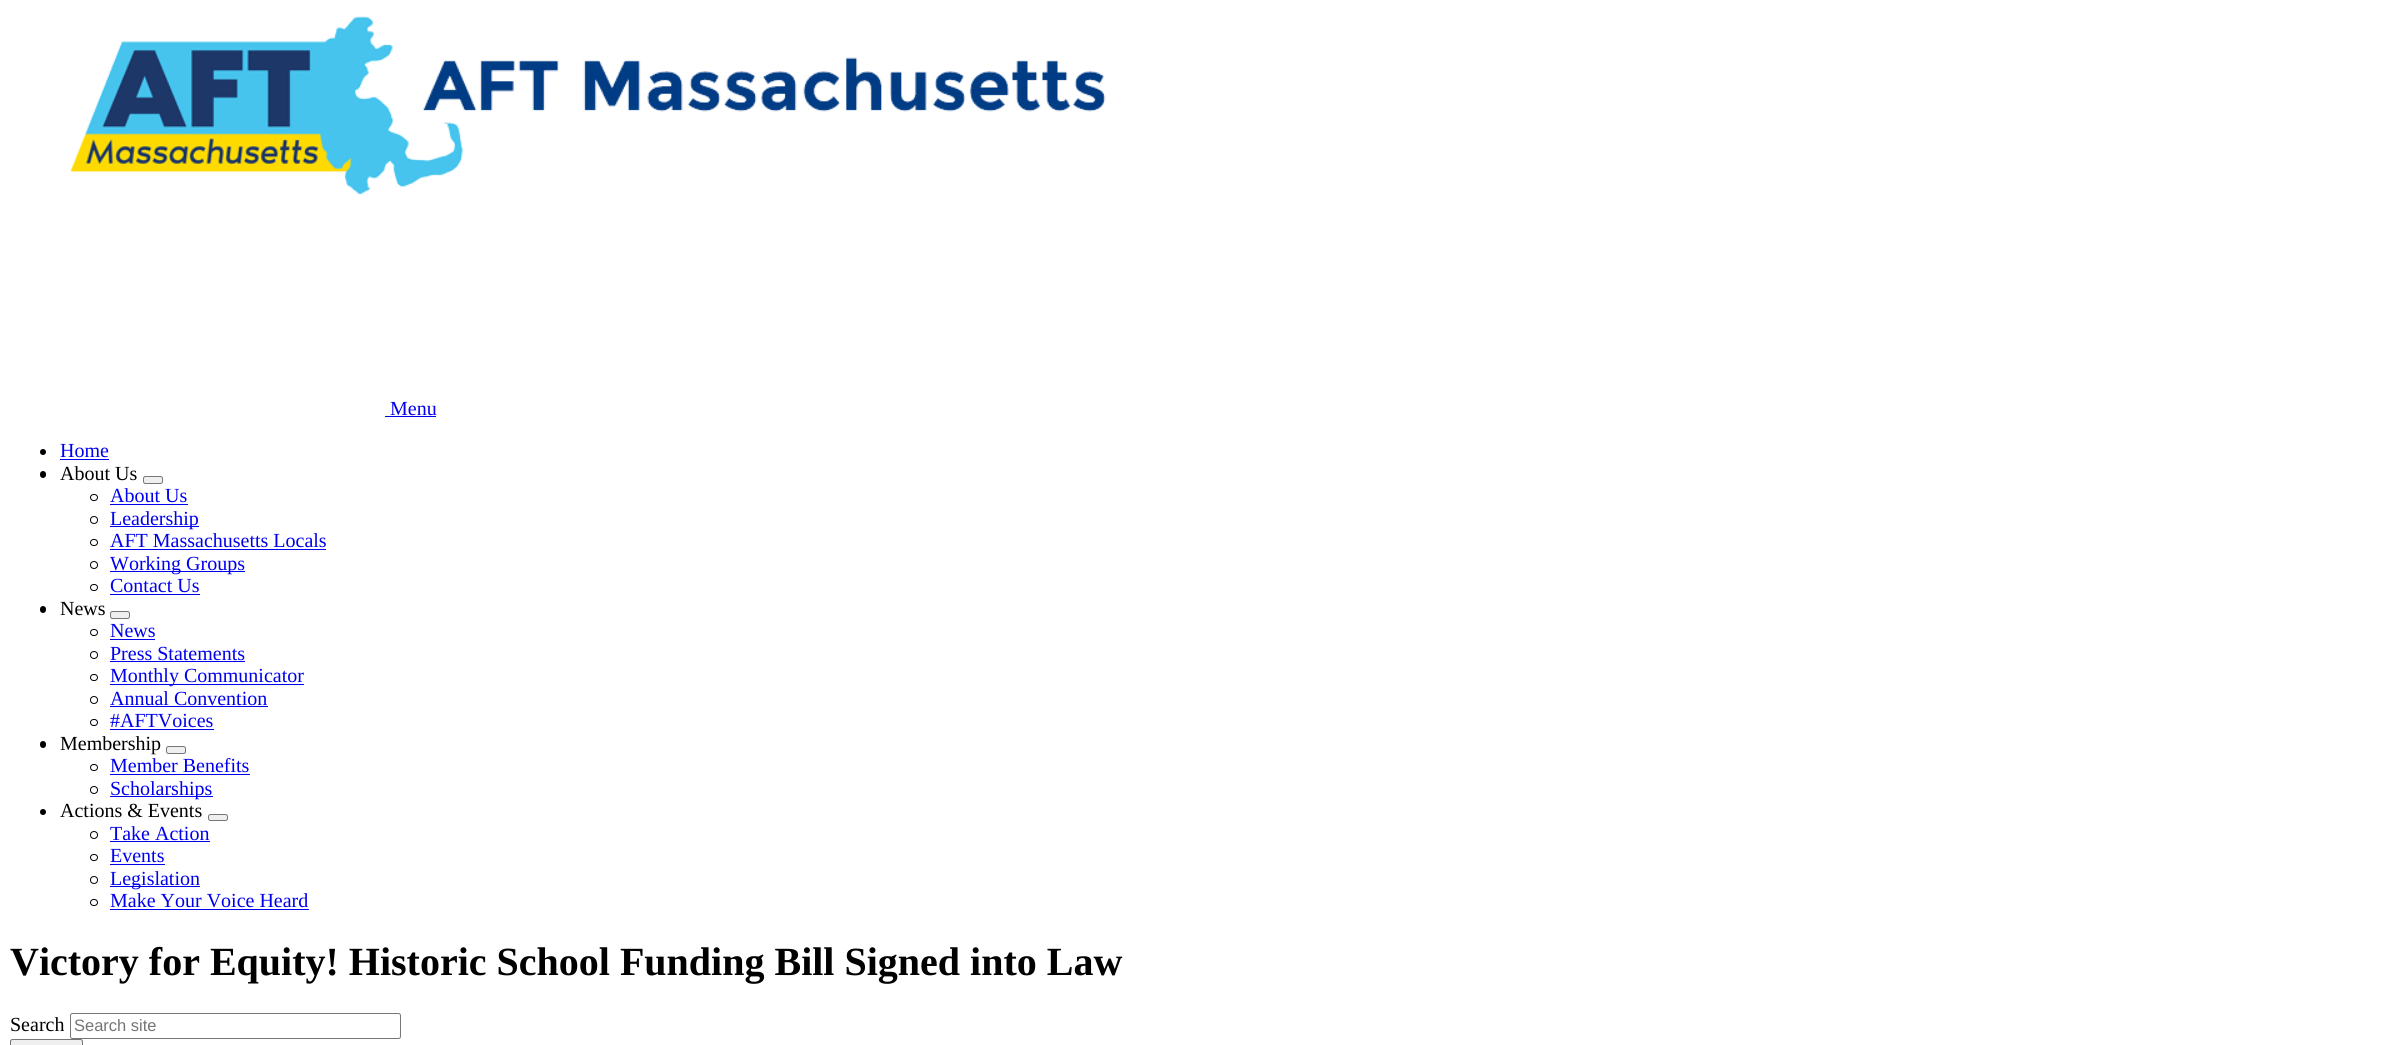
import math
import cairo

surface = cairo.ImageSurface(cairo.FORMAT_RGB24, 2408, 1045)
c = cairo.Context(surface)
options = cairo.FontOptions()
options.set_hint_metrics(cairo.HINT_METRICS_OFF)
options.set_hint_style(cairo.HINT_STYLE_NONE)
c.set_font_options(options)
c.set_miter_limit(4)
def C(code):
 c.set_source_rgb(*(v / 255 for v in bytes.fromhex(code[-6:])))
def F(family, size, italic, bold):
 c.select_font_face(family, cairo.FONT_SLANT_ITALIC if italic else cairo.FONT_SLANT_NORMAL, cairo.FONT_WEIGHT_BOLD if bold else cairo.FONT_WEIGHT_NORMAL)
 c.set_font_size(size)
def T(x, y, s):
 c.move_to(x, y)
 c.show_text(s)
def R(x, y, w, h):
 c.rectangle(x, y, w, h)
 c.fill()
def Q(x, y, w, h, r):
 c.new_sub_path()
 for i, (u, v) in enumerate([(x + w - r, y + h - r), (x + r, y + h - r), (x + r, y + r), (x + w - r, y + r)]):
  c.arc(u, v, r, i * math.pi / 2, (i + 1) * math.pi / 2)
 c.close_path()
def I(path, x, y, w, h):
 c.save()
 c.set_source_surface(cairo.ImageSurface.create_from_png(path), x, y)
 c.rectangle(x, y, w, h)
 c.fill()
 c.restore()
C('ffffff')
c.paint()
I('1.png',70,16,1036,179)
F('Liberation Serif',20,0,0)
C('0000ee')
T(390,415,'Menu')
R(385,416,51,1)
C('000000')
c.new_path()
c.arc(43,452,3,0,2 * math.pi)
c.fill()
C('0000ee')
T(60,457,'Home')
R(60,459,49,1)
C('000000')
Q(40,471,6,7,3)
c.fill()
T(60,480,'About Us')
C('efefef')
Q(143.5,476.5,19,7,2)
c.fill_preserve()
C('767676')
c.set_line_width(1)
c.stroke()
Q(90.5,494.5,7,6,3)
C('000000')
c.stroke()
C('0000ee')
T(110,502,'About Us')
R(110,504,78,1)
c.new_path()
c.arc(94,520,3.5,0,2 * math.pi)
C('000000')
c.stroke()
C('0000ee')
R(110,526,89,1)
T(110,525,'Leadership')
Q(90.5,539.5,7,6,3)
C('000000')
c.stroke()
C('0000ee')
T(110,547,'AFT Massachusetts Locals')
R(110,549,216,1)
c.new_path()
c.arc(94,565,3.5,0,2 * math.pi)
C('000000')
c.stroke()
C('0000ee')
R(110,571,135,1)
T(110,570,'Working Groups')
Q(90.5,584.5,7,6,3)
C('000000')
c.stroke()
C('0000ee')
T(110,592,'Contact Us')
R(110,594,90,1)
C('000000')
Q(40,606,6,7,3)
c.fill()
T(60,615,'News')
C('efefef')
Q(110.5,611.5,19,7,2)
c.fill_preserve()
C('767676')
c.stroke()
Q(90.5,629.5,7,6,3)
C('000000')
c.stroke()
C('0000ee')
T(110,637,'News')
R(110,639,45,1)
c.new_path()
c.arc(94,655,3.5,0,2 * math.pi)
C('000000')
c.stroke()
C('0000ee')
T(110,660,'Press Statements')
R(110,661,135,1)
Q(90.5,674.5,7,6,3)
C('000000')
c.stroke()
C('0000ee')
R(110,684,194,1)
T(110,682,'Monthly Communicator')
c.new_path()
c.arc(94,700,3.5,0,2 * math.pi)
C('000000')
c.stroke()
C('0000ee')
T(110,705,'Annual Convention')
R(110,706,158,1)
Q(90.5,719.5,7,6,3)
C('000000')
c.stroke()
C('0000ee')
T(110,727,'#AFTVoices')
R(110,729,104,1)
C('000000')
Q(40,741,6,7,3)
c.fill()
T(60,750,'Membership')
C('efefef')
Q(166.5,746.5,19,7,2)
c.fill_preserve()
C('767676')
c.stroke()
Q(90.5,764.5,7,6,3)
C('000000')
c.stroke()
C('0000ee')
T(110,772,'Member Benefits')
R(110,774,140,1)
c.new_path()
c.arc(94,790,3.5,0,2 * math.pi)
C('000000')
c.stroke()
C('0000ee')
R(110,796,103,1)
T(110,795,'Scholarships')
C('000000')
c.new_path()
c.arc(43,812,3,0,2 * math.pi)
c.fill()
T(60,817,'Actions & Events')
C('efefef')
Q(208.5,814.5,19,6,2)
c.fill_preserve()
C('767676')
c.stroke()
c.arc(94,835,3.5,0,2 * math.pi)
C('000000')
c.stroke()
C('0000ee')
T(110,840,'Take Action')
R(110,841,100,1)
Q(90.5,854.5,7,6,3)
C('000000')
c.stroke()
C('0000ee')
T(110,862,'Events')
R(110,864,55,1)
c.new_path()
c.arc(94,880,3.5,0,2 * math.pi)
C('000000')
c.stroke()
C('0000ee')
R(110,886,90,1)
T(110,885,'Legislation')
Q(90.5,899.5,7,6,3)
C('000000')
c.stroke()
C('0000ee')
T(110,907,'Make Your Voice Heard')
R(110,909,199,1)
F('Liberation Serif',40,0,1)
C('000000')
T(10,975,'Victory for Equity! Historic School Funding Bill Signed into Law')
F('Liberation Serif',20,0,0)
T(10,1031,'Search')
Q(70.5,1013.5,330,25,2)
C('767676')
c.stroke()
F('Liberation Sans',16.5,0,0)
C('757575')
T(74,1031,'Search site')
C('efefef')
Q(10.5,1039.5,72,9,2)
c.fill_preserve()
C('767676')
c.stroke()
surface.write_to_png('o.png')
